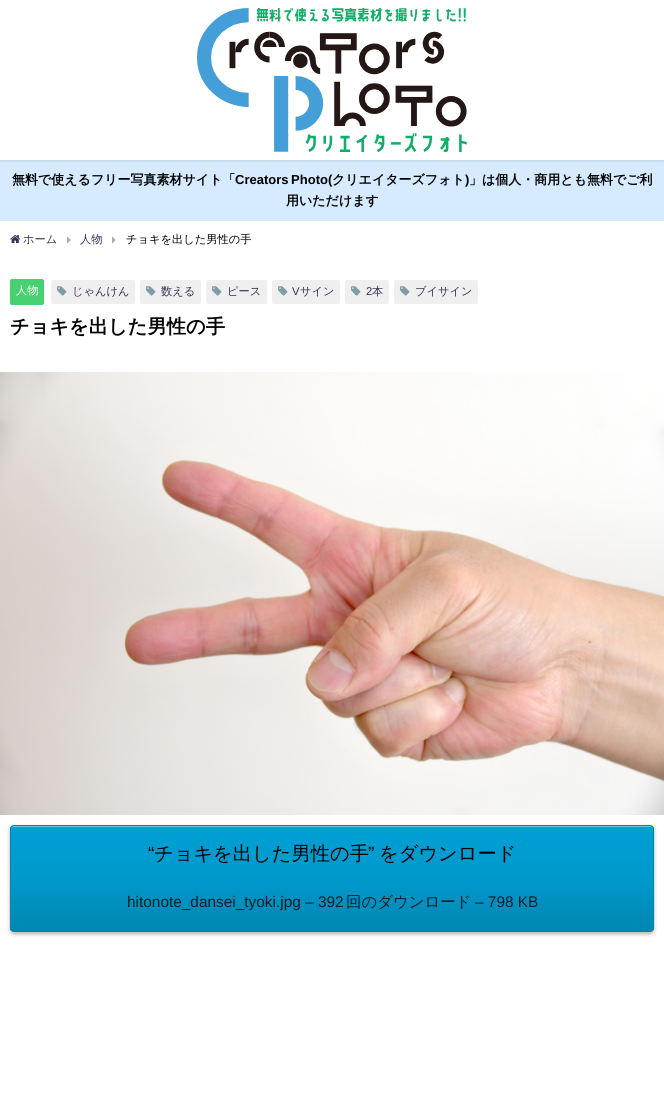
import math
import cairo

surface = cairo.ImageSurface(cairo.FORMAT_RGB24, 664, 1115)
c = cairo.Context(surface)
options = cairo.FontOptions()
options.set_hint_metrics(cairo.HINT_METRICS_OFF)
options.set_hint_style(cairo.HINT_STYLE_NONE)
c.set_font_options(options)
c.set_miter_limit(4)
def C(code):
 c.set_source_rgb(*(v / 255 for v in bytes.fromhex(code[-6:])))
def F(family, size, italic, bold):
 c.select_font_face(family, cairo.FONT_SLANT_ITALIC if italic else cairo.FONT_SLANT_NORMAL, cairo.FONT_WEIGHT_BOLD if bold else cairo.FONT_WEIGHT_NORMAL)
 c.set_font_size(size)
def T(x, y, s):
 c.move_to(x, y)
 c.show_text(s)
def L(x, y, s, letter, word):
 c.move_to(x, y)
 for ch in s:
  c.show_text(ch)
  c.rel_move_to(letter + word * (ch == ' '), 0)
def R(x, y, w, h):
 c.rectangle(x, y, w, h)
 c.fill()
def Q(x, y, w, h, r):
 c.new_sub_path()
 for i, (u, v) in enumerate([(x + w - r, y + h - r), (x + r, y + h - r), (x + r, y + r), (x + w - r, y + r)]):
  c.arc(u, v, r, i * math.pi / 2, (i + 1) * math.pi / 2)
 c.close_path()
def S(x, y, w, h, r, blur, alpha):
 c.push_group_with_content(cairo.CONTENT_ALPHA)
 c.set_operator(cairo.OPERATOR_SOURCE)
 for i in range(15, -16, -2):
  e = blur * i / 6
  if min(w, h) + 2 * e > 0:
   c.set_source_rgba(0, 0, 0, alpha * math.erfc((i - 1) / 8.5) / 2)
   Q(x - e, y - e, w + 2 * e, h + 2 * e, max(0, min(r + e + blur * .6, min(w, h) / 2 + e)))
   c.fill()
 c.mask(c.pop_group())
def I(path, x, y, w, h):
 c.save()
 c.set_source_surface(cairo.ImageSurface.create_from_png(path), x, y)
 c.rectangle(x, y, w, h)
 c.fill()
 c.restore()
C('ffffff')
c.paint()
C('d6ebff')
R(0,160,664,61)
c.save()
c.rectangle(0,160,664,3)
c.clip()
C('000000')
S(0,0,664,160,0,2,.2)
c.restore()
I('1.png',197,8,270,144)
F('WenQuanYi Zen Hei',13,0,1)
C('000000')
T(12,184,'無料で使えるフリー写真素材サイト「')
F('Liberation Sans',13,0,1)
L(235,184,'Creators Photo(',0,-1)
F('WenQuanYi Zen Hei',13,0,1)
T(332,184,'クリエイターズフォト')
F('Liberation Sans',13,0,1)
T(465,184,')')
F('WenQuanYi Zen Hei',13,0,1)
T(469,184,'」は個人・商用とも無料でご利')
T(286,205,'用いただけます')
I('2.png',10,235,11,8)
F('WenQuanYi Zen Hei Medium',11.25,0,0)
C('333355')
T(23,243,'ホーム')
I('3.png',67,236,4,8)
T(80,243,'人物')
I('3.png',112,236,4,8)
C('000000')
T(126,243,'チョキを出した男性の手')
C('47d170')
Q(10,279,34,26,2)
c.fill()
C('ffffff')
T(16,294,'人物')
C('efefef')
Q(51,280,84,24,2)
c.fill()
I('4.png',57,286,10,10)
C('333355')
T(72,295,'じゃんけん')
C('efefef')
Q(140,280,61,24,2)
c.fill()
I('4.png',146,286,10,10)
C('333355')
T(161,295,'数える')
C('efefef')
Q(206,280,61,24,2)
c.fill()
I('4.png',212,286,10,10)
C('333355')
T(227,295,'ピース')
C('efefef')
Q(272,280,68,24,2)
c.fill()
I('4.png',278,286,10,10)
F('Liberation Sans',11.25,0,0)
C('333355')
T(292,295,'V')
F('WenQuanYi Zen Hei Medium',11.25,0,0)
T(300,295,'サイン')
C('efefef')
Q(345,280,44,24,2)
c.fill()
I('4.png',351,286,10,10)
F('Liberation Sans',11.25,0,0)
C('333355')
T(366,295,'2')
F('WenQuanYi Zen Hei Medium',11.25,0,0)
T(372,295,'本')
C('efefef')
Q(394,280,84,24,2)
c.fill()
I('4.png',400,286,10,10)
C('333355')
T(415,295,'ブイサイン')
F('WenQuanYi Zen Hei',19.25,0,1)
C('000000')
T(10,333,'チョキを出した男性の手')
I('5.png',0,372,664,443)
C('000000')
S(10,827,644,107,4,2,.3)
c.save()
Q(10,825,644,107,4)
c.clip()
gradient = cairo.LinearGradient(332,826,332,931)
gradient.add_color_stop_rgba(0,0,0.624,0.831,1)
gradient.add_color_stop_rgba(.5,0,0.6,0.8,1)
gradient.add_color_stop_rgba(1,0,0.525,0.698,1)
c.set_source(gradient)
R(10,826,644,105)
c.restore()
C('66c5e5')
c.new_path()
c.move_to(14,827)
c.line_to(650,827)
c.curve_to(652,827,653,828,653,830)
c.line_to(653,829)
c.curve_to(653,827,652,826,650,826)
c.line_to(14,826)
c.curve_to(12,826,11,827,11,829)
c.line_to(11,830)
c.curve_to(11,828,12,827,14,827)
c.close_path()
c.fill()
Q(10.5,825.5,643,106,3.5)
C('0086b2')
c.set_line_width(1)
c.stroke()
F('Liberation Sans',19.25,0,0)
C('000000')
T(148,860,'“')
F('WenQuanYi Zen Hei Medium',19.25,0,0)
T(154,860,'チョキを出した男性の手')
F('Liberation Sans',19.25,0,0)
T(368,860,'”')
F('WenQuanYi Zen Hei Medium',19.25,0,0)
T(379,860,'をダウンロード')
F('Liberation Sans',15.4,0,0)
C('001d26')
T(127,907,'hitonote_dansei_tyoki.jpg – 392')
F('WenQuanYi Zen Hei Medium',15.4,0,0)
T(346,907,'回のダウンロード')
F('Liberation Sans',15.4,0,0)
T(475,907,'– 798 KB')
surface.write_to_png('o.png')
